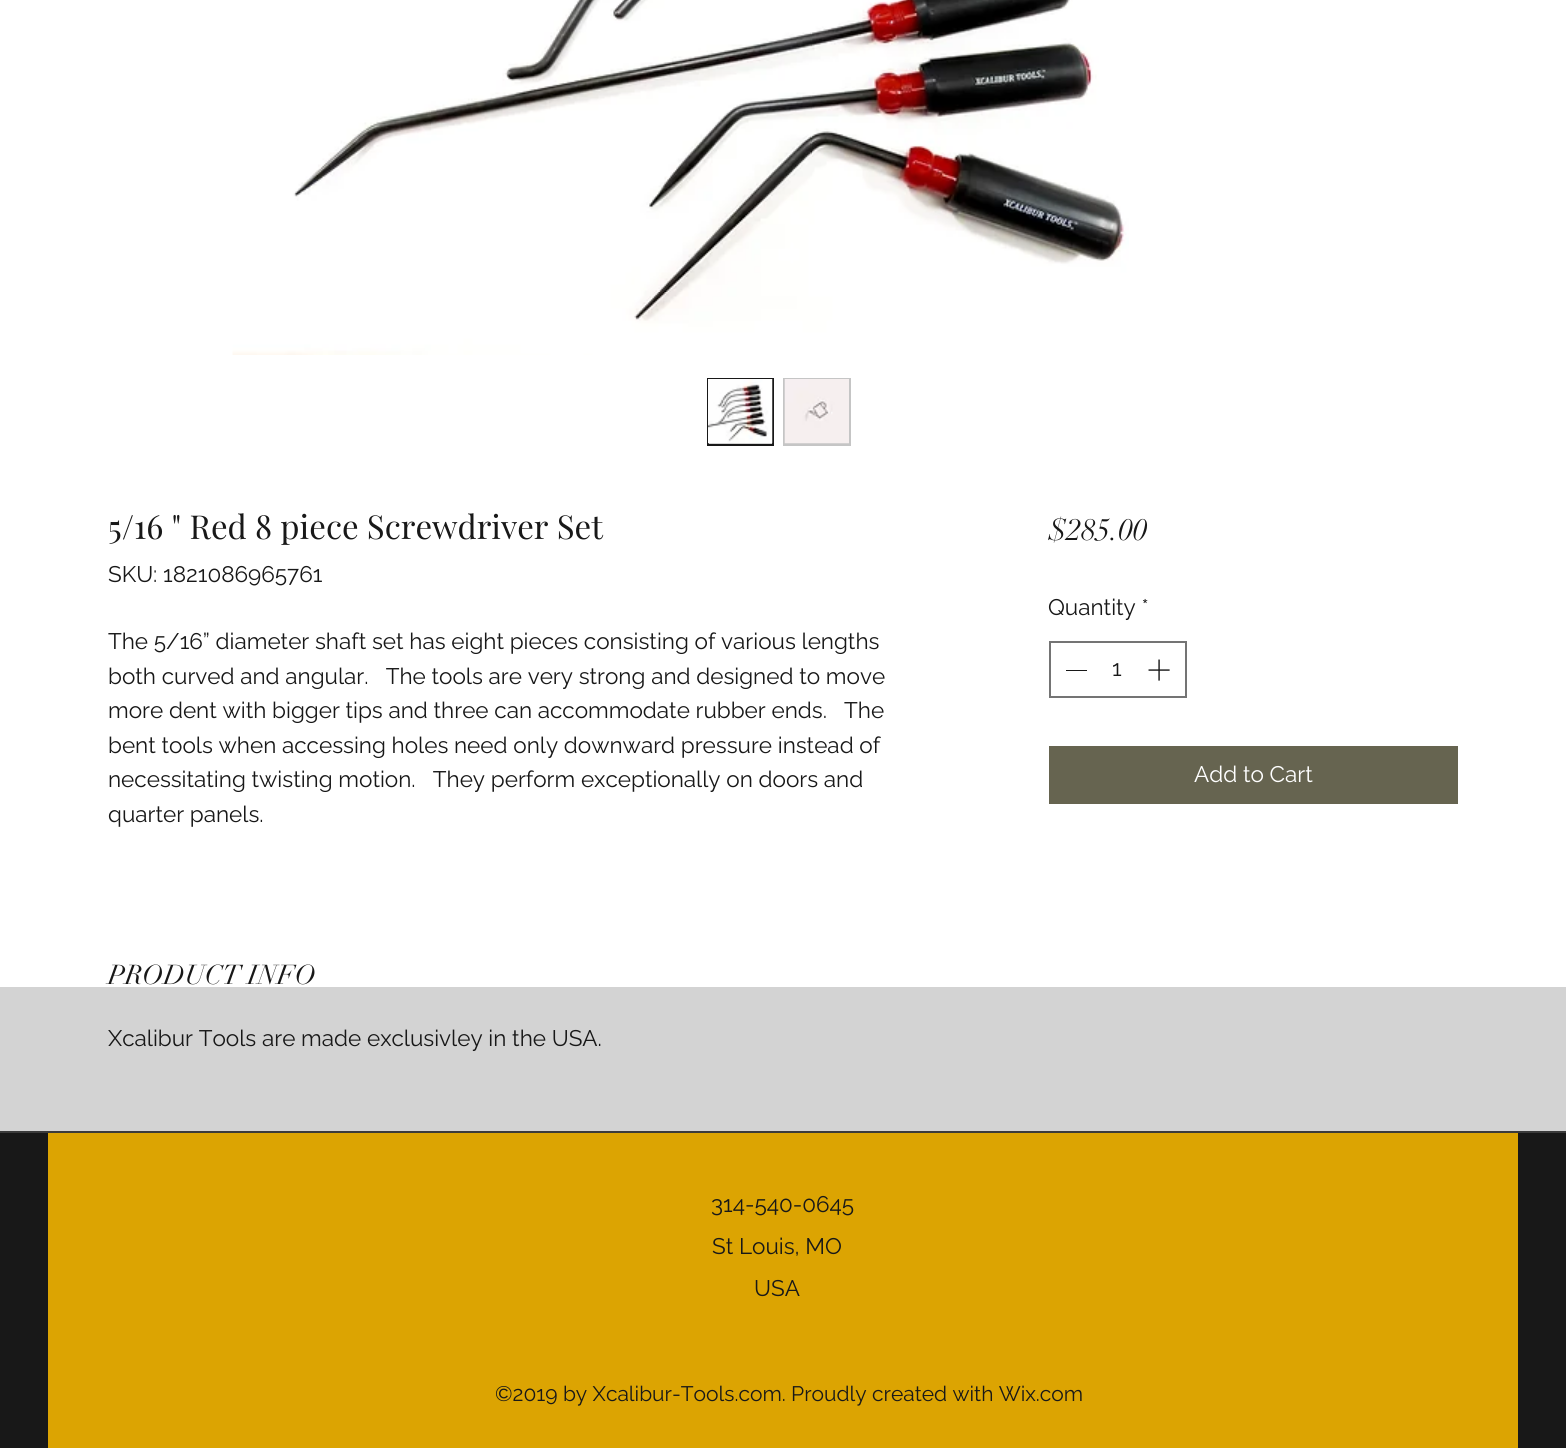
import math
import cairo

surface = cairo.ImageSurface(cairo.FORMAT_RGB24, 1566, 1448)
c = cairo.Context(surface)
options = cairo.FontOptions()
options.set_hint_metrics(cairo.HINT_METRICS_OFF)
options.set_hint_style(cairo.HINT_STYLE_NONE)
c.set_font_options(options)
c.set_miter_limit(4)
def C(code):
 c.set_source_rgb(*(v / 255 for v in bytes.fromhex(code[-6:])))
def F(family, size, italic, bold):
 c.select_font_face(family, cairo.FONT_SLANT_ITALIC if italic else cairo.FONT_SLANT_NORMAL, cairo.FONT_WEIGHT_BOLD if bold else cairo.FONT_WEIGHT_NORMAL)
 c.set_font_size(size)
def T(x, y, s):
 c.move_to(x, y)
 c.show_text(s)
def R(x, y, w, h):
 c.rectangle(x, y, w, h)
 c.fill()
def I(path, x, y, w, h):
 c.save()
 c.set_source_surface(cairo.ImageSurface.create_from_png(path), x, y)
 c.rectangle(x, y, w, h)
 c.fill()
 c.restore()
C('d3d3d3')
c.paint()
C('ffffff')
R(0,0,1566,987)
I('1.png',232,0,897,355)
C('c5c5c5')
R(709,443,63,1)
c.rectangle(708,379,65,66)
C('181818')
c.stroke()
I('2.png',708,379,65,65)
C('c5c5c5')
R(783,378,68,68)
I('3.png',784,379,65,65)
F('Playfair Display',33,0,0)
C('181818')
T(108,539,'5/16 " Red 8 piece Screwdriver Set')
F('Raleway',22.5,0,0)
T(108,582,'SKU: 1821086965761')
T(108,649,'The 5/16” diameter shaft set has eight pieces consisting of various lengths')
T(108,684,'both curved and angular.   The tools are very strong and designed to move')
T(108,718,'more dent with bigger tips and three can accommodate rubber ends.   The')
T(108,753,'bent tools when accessing holes need only downward pressure instead of')
T(108,787,'necessitating twisting motion.   They perform exceptionally on doors and')
T(108,822,'quarter panels.')
F('didot',27,0,0)
T(108,984,'PRODUCT INFO')
F('Raleway',22.5,0,0)
T(108,1046,'Xcalibur Tools are made exclusivley in the USA.')
F('didot',30,0,0)
T(1048,540,'$285.00')
F('Raleway',22.5,0,0)
T(1048,615,'Quantity *')
c.rectangle(1050,642,136,55)
C('747474')
c.stroke()
C('181818')
R(1066,670,21,1)
T(1112,676,'1')
I('4.png',1148,659,22,22)
C('666450')
R(1049,746,409,58)
C('ffffff')
T(1194,782,'Add to Cart')
C('181818')
R(0,1133,1566,315)
C('3b3b3b')
R(0,1131,1566,2)
C('dca402')
R(48,1133,1470,315)
C('181818')
T(711,1212,'314-540-0645')
T(712,1254,'St Louis, MO')
T(754,1296,'USA')
F('Raleway',21,0,0)
T(495,1401,'©2019 by Xcalibur-Tools.com. Proudly created with Wix.com')
surface.write_to_png('o.png')
